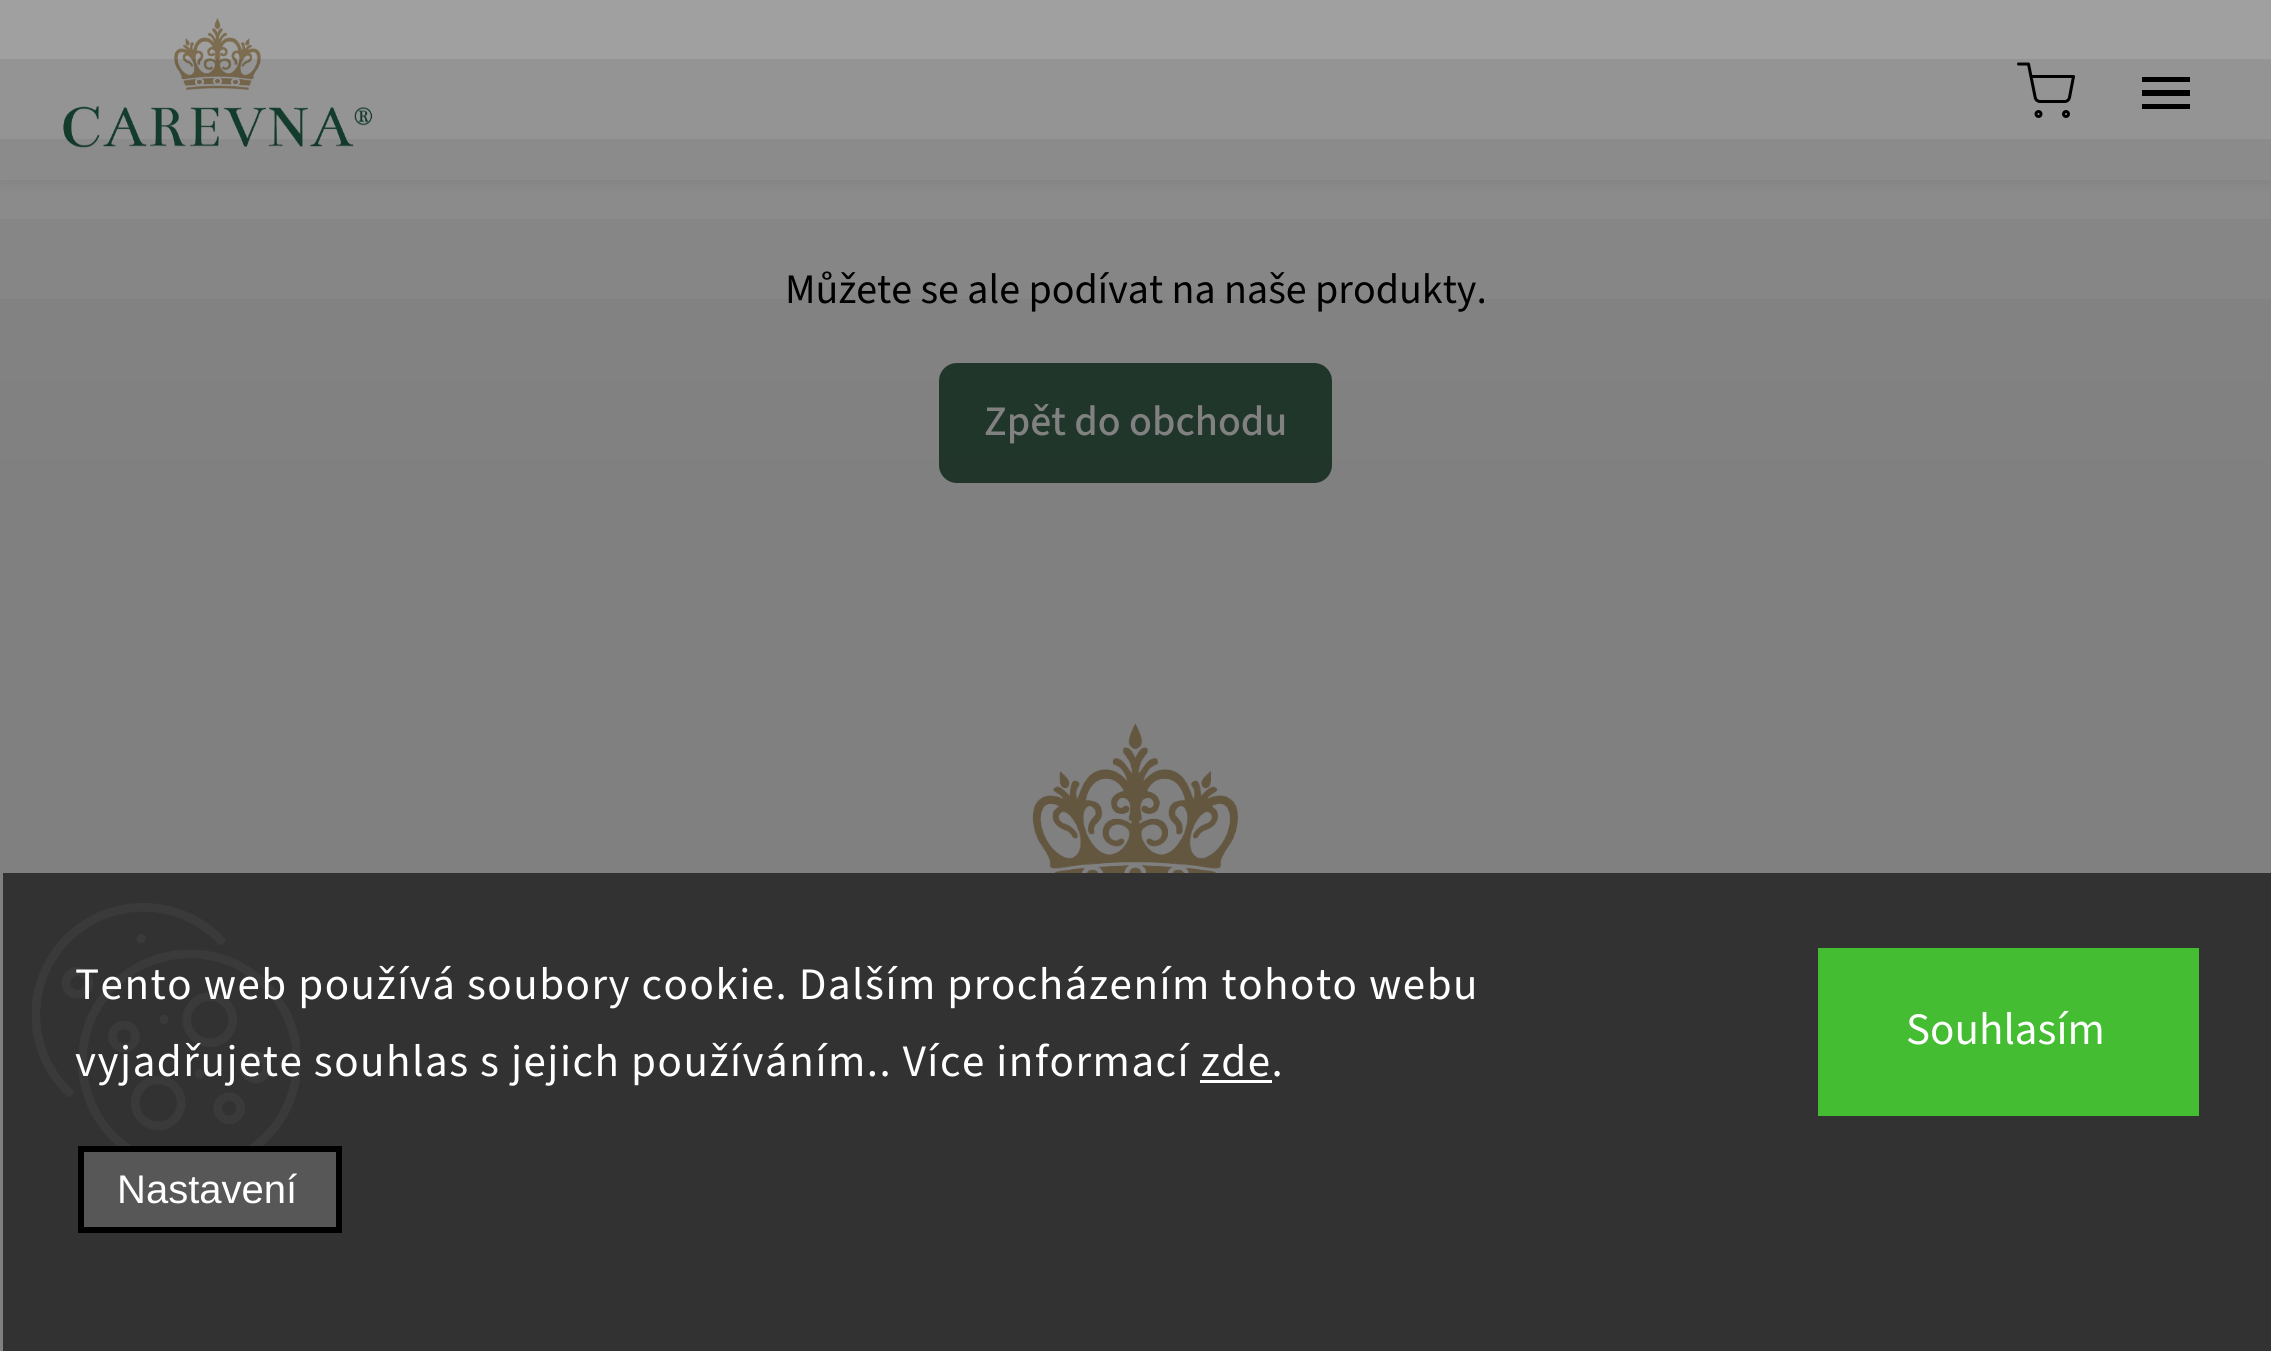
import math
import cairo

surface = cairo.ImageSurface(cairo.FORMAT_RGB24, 2271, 1351)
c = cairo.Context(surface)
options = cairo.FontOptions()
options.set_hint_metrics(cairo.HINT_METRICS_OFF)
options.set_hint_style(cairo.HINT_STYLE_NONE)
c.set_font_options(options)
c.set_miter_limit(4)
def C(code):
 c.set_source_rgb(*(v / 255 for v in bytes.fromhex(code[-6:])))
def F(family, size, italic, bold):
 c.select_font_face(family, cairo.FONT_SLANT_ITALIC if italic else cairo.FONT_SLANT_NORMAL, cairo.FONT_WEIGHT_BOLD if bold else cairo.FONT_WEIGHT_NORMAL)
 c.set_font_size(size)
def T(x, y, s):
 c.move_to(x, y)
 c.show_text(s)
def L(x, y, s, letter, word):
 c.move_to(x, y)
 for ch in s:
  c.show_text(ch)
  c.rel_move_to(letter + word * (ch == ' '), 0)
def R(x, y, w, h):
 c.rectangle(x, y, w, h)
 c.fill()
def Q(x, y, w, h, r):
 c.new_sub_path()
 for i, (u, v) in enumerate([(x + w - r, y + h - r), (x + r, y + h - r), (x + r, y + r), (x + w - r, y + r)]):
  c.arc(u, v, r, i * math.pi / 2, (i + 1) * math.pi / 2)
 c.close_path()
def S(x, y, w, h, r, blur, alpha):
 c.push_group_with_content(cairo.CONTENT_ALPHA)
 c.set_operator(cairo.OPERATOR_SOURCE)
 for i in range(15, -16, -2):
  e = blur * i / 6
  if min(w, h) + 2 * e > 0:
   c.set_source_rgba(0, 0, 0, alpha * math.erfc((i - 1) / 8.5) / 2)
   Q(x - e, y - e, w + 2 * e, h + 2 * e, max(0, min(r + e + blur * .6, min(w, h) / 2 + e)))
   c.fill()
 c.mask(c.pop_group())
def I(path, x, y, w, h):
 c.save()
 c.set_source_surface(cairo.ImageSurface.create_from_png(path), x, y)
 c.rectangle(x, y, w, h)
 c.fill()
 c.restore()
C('ffffff')
c.paint()
C('000000')
S(0,0,2271,180,0,7.5,.1)
C('ffffff')
R(0,0,2271,180)
I('1.png',63,18,310,130)
I('2.png',2017,62,58,56)
C('000000')
c.new_path()
c.move_to(2142,109)
c.line_to(2190,109)
c.line_to(2190,104)
c.line_to(2142,104)
c.close_path()
c.move_to(2142,96)
c.line_to(2190,96)
c.line_to(2190,90)
c.line_to(2142,90)
c.close_path()
c.move_to(2142,77)
c.line_to(2142,82)
c.line_to(2190,82)
c.line_to(2190,77)
c.close_path()
c.fill()
F('Source Sans 3',42,0,0)
T(785,303,'Můžete se ale podívat na naše produkty.')
C('416a55')
Q(939,363,393,120,18)
c.fill()
F('Source Sans 3 Medium',42,0,0)
C('ffffff')
T(984,435,'Zpět do obchodu')
I('3.png',1032,723,206,150)
C('000000')
S(-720,-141,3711,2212,0,240,.5)
C('323232')
R(3,873,2268,478)
I('4.png',32,903,268,243)
F('Source Sans 3',45,0,0)
C('ffffff')
L(75,999,'Tento web používá soubory cookie. Dalším procházením tohoto webu',1.5,0)
L(75,1076,'vyjadřujete souhlas s jejich používáním.. Více informací zde.',1.5,0)
R(1200,1080,72,3)
C('585757')
c.rectangle(81,1149,258,81)
c.fill_preserve()
C('000000')
c.set_line_width(6)
c.stroke()
F('Liberation Sans',40,0,0)
C('ffffff')
T(117,1203,'Nastavení')
C('44bd32')
R(1818,948,381,168)
F('Source Sans 3',45,0,0)
C('ffffff')
T(1906,1044,'Souhlasím')
surface.write_to_png('o.png')
